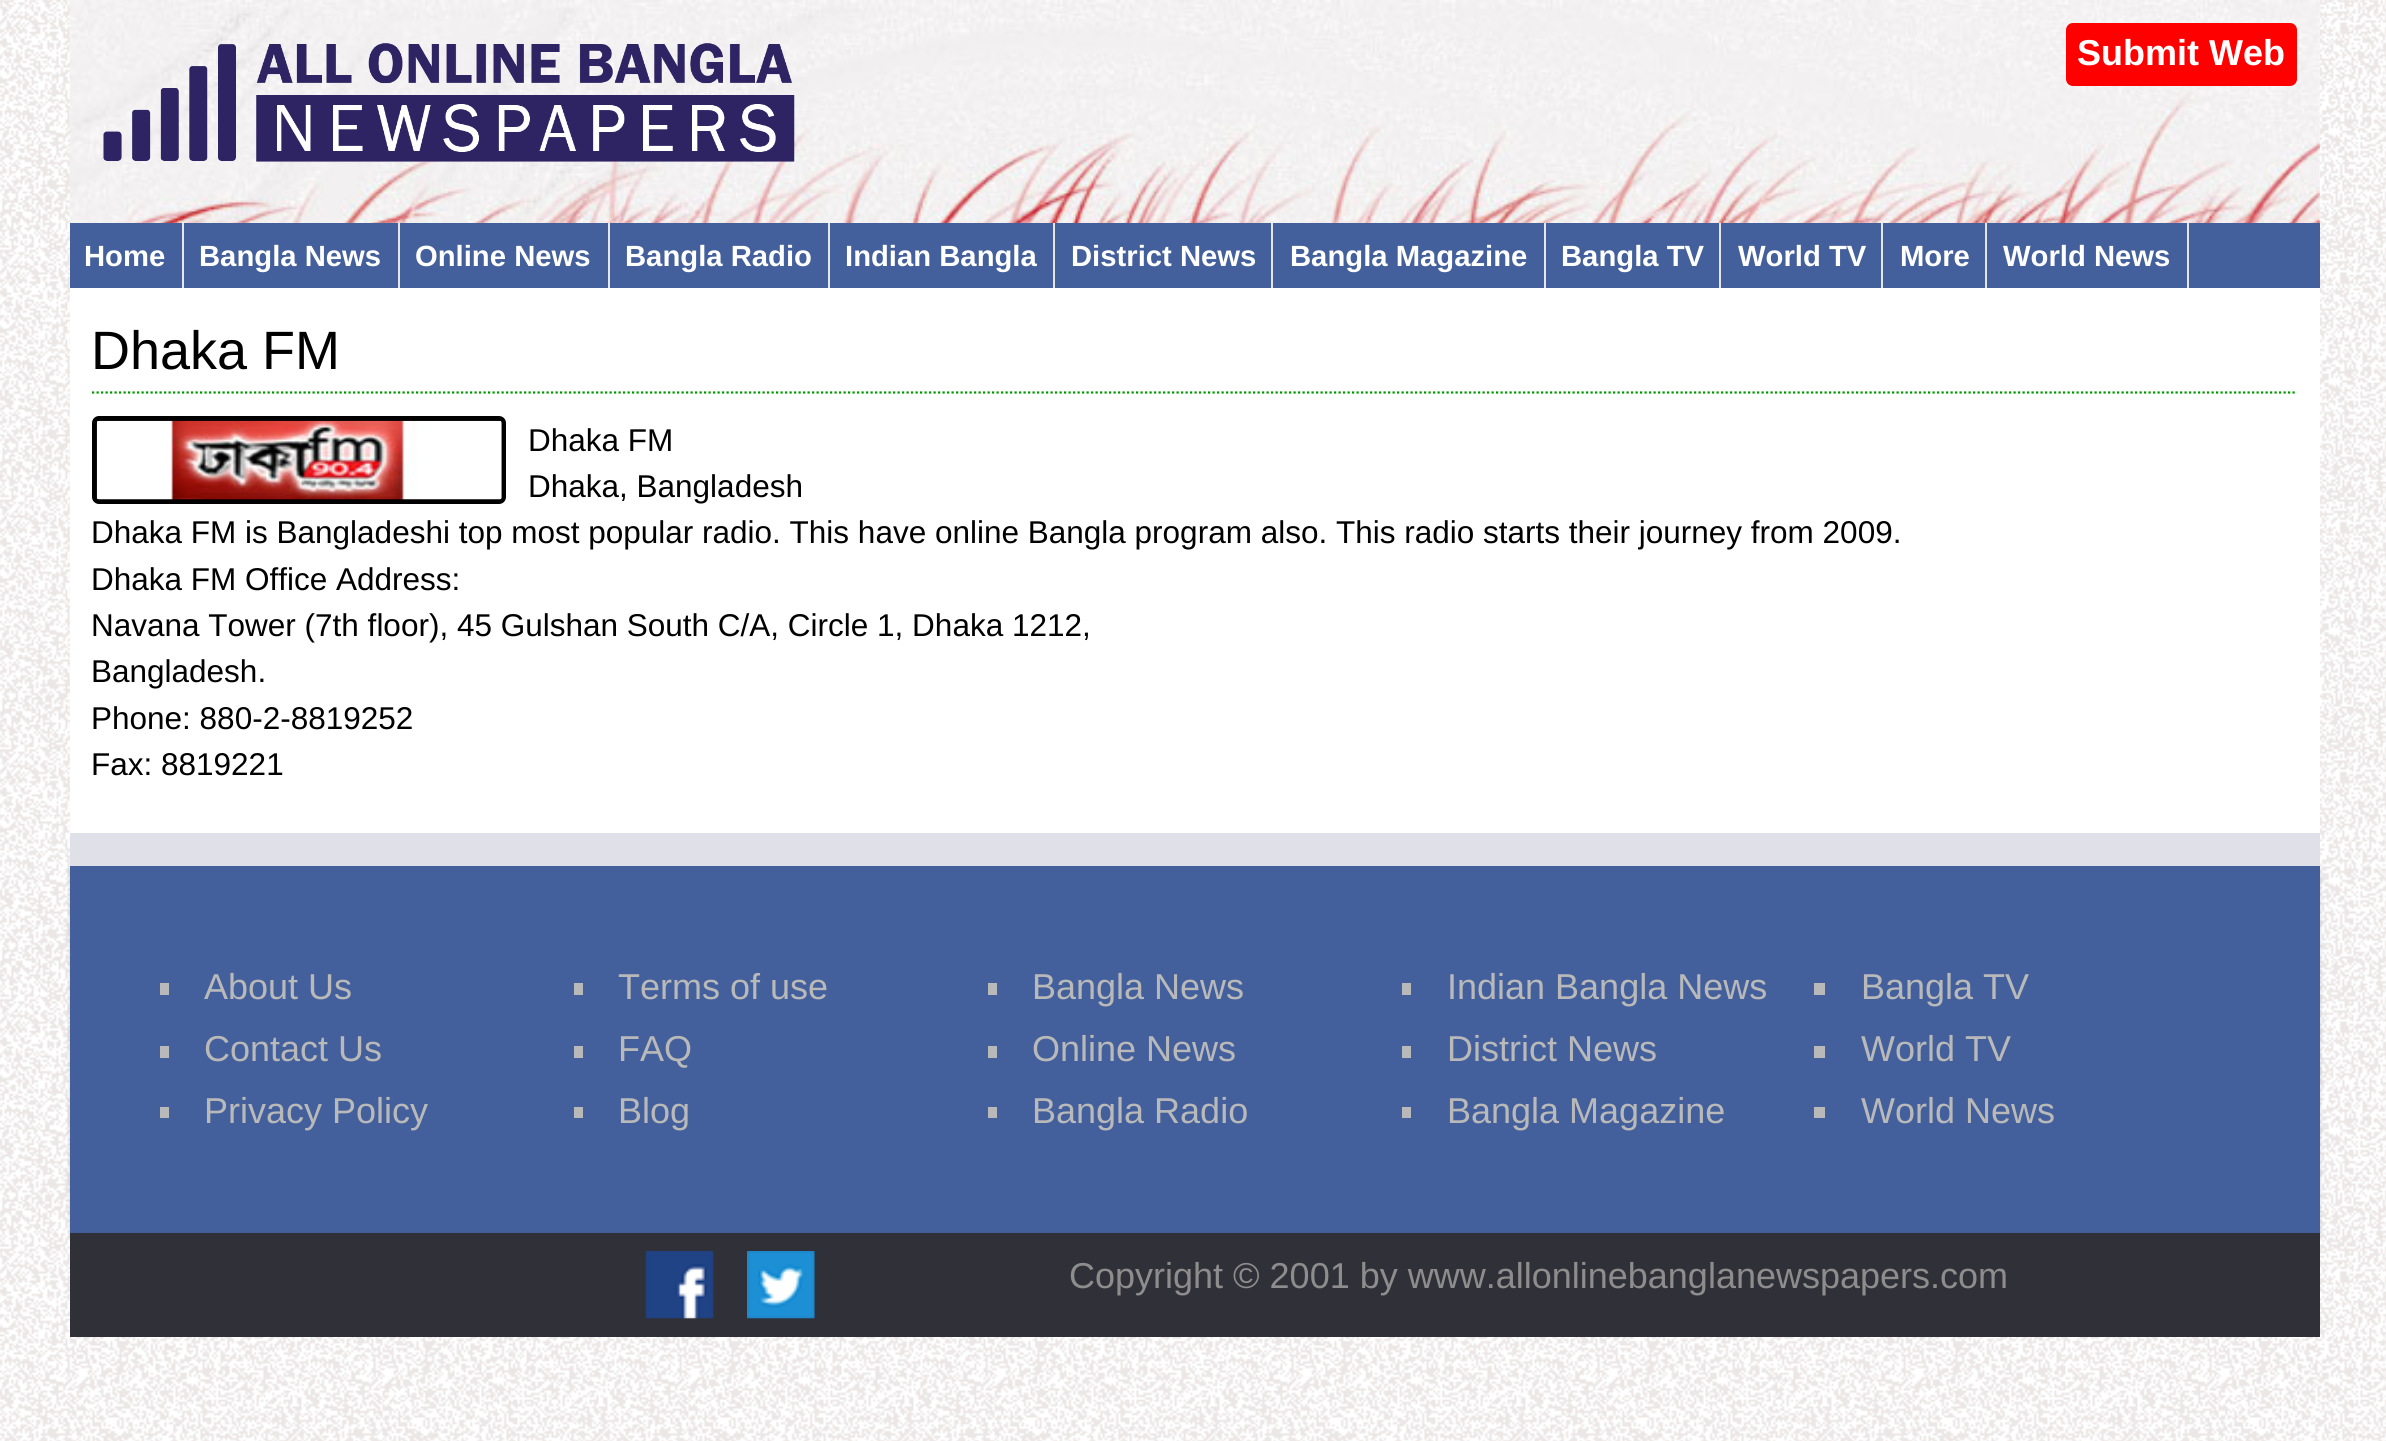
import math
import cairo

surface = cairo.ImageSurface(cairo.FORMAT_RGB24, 2386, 1441)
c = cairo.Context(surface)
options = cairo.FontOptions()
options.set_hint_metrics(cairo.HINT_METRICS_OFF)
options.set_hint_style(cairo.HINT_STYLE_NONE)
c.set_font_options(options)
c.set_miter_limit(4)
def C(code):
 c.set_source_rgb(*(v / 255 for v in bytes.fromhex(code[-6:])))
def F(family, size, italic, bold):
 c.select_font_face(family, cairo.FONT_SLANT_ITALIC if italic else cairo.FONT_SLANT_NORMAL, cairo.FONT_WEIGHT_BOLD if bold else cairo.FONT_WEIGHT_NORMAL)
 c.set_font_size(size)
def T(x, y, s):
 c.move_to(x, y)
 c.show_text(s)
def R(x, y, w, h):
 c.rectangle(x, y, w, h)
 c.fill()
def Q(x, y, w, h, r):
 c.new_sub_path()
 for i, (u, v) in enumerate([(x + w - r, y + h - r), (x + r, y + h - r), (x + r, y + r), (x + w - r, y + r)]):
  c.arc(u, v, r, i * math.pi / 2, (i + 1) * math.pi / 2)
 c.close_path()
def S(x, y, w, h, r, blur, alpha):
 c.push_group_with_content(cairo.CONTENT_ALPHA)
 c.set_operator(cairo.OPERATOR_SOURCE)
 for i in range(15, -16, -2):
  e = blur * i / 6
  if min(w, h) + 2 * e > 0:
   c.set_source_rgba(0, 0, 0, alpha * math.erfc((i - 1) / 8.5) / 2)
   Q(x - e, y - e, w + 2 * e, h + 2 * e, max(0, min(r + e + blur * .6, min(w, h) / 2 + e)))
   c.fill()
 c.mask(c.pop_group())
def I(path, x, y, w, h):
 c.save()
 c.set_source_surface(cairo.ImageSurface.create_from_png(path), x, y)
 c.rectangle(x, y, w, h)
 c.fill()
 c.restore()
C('ffffff')
c.paint()
I('1.png',0,0,2386,1441)
C('ffffff')
R(70,0,2250,833)
I('2.png',69,0,2251,228)
I('3.png',103,43,692,119)
C('ff0000')
Q(2066,23,231,63,7)
c.fill()
F('Liberation Sans',36,0,1)
C('ffffff')
T(2077,65,'Submit Web')
C('43609c')
R(70,223,2250,65)
C('e5e5e5')
R(182,223,2,65)
F('Liberation Sans',29.25,0,1)
C('ffffff')
T(84,266,'Home')
C('e5e5e5')
R(398,223,2,65)
C('ffffff')
T(199,266,'Bangla News')
C('e5e5e5')
R(608,223,2,65)
C('ffffff')
T(415,266,'Online News')
C('e5e5e5')
R(828,223,2,65)
C('ffffff')
T(625,266,'Bangla Radio')
C('e5e5e5')
R(1053,223,2,65)
C('ffffff')
T(845,266,'Indian Bangla')
C('e5e5e5')
R(1271,223,2,65)
C('ffffff')
T(1071,266,'District News')
C('e5e5e5')
R(1544,223,2,65)
C('ffffff')
T(1290,266,'Bangla Magazine')
C('e5e5e5')
R(1719,223,2,65)
C('ffffff')
T(1561,266,'Bangla TV')
C('e5e5e5')
R(1881,223,2,65)
C('ffffff')
T(1738,266,'World TV')
C('e5e5e5')
R(1985,223,2,65)
C('ffffff')
T(1900,266,'More')
C('e5e5e5')
R(2187,223,2,65)
C('ffffff')
T(2003,266,'World News')
C('e0e0e8')
R(70,833,2250,33)
c.new_path()
c.move_to(92,392.5)
c.line_to(2297,392.5)
C('009900')
c.set_line_width(2.2)
c.set_dash([2.25,2.25])
c.stroke()
F('Liberation Sans',54,0,0)
C('000000')
T(91,369,'Dhaka FM')
Q(94.5,418.5,409,83,4.5)
c.set_line_width(5)
c.set_dash([])
c.stroke()
I('4.png',96,420,406,80)
F('Liberation Sans',31.5,0,0)
T(528,451,'Dhaka FM')
T(528,497,'Dhaka, Bangladesh')
T(91,543,'Dhaka FM is Bangladeshi top most popular radio. This have online Bangla program also. This radio starts their journey from 2009.')
T(91,590,'Dhaka FM Office Address:')
T(91,636,'Navana Tower (7th floor), 45 Gulshan South C/A, Circle 1, Dhaka 1212,')
T(91,682,'Bangladesh.')
T(91,729,'Phone: 880-2-8819252')
T(91,775,'Fax: 8819221')
C('000000')
S(70,869,2250,366,0,2,.2)
C('43609c')
R(70,866,2250,367)
C('b9b9b9')
R(160,983,9,12)
F('Liberation Sans',36,0,0)
T(204,999,'About Us')
R(160,1046,9,12)
T(204,1061,'Contact Us')
R(160,1107,9,11)
T(204,1123,'Privacy Policy')
R(574,983,9,12)
T(618,999,'Terms of use')
R(574,1046,9,12)
T(618,1061,'FAQ')
R(574,1107,9,11)
T(618,1123,'Blog')
R(988,983,9,12)
T(1032,999,'Bangla News')
R(988,1046,9,12)
T(1032,1061,'Online News')
R(988,1107,9,11)
T(1032,1123,'Bangla Radio')
R(1402,983,9,12)
T(1447,999,'Indian Bangla News')
R(1402,1046,9,12)
T(1447,1061,'District News')
R(1402,1107,9,11)
T(1447,1123,'Bangla Magazine')
R(1814,983,11,12)
T(1861,999,'Bangla TV')
R(1814,1046,11,12)
T(1861,1061,'World TV')
R(1814,1107,11,11)
T(1861,1123,'World News')
C('303038')
R(70,1233,2250,104)
I('5.png',645,1251,69,68)
I('6.png',747,1251,68,68)
C('8d8d8d')
T(1069,1288,'Copyright © 2001 by www.allonlinebanglanewspapers.com')
surface.write_to_png('o.png')
